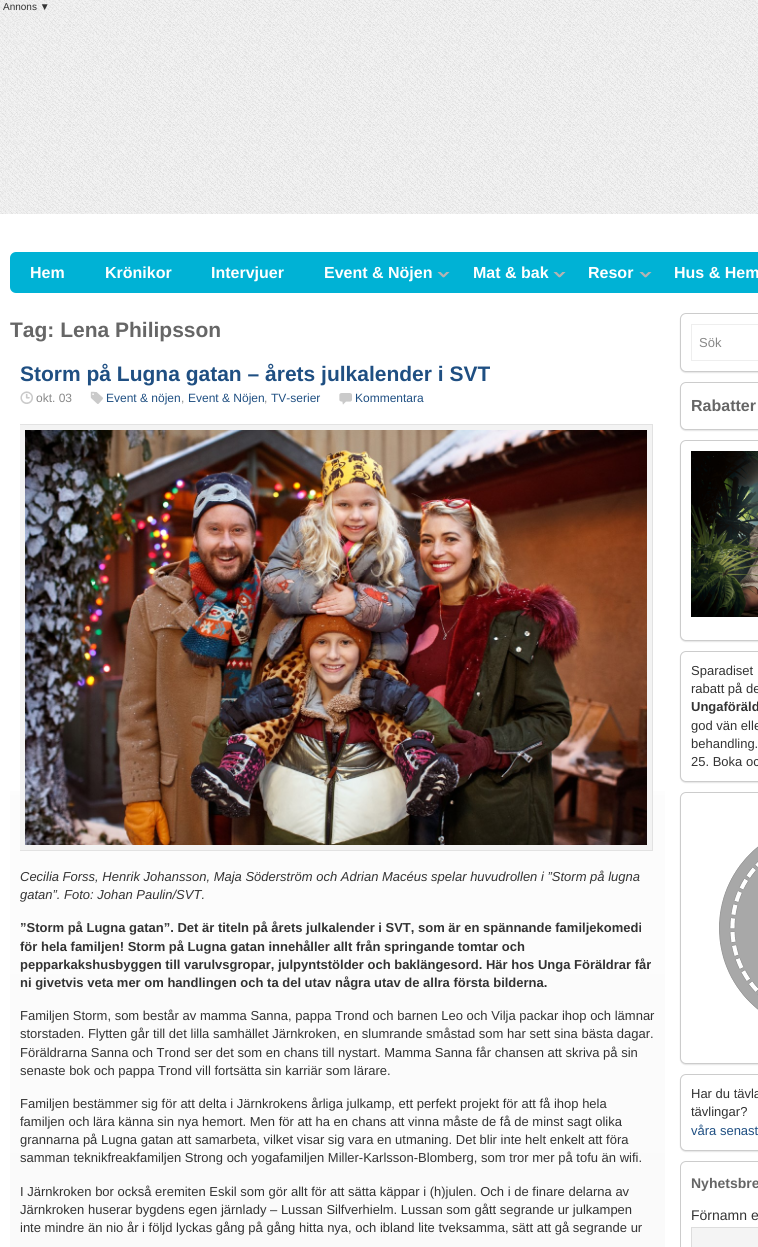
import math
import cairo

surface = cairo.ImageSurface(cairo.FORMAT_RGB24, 758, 1247)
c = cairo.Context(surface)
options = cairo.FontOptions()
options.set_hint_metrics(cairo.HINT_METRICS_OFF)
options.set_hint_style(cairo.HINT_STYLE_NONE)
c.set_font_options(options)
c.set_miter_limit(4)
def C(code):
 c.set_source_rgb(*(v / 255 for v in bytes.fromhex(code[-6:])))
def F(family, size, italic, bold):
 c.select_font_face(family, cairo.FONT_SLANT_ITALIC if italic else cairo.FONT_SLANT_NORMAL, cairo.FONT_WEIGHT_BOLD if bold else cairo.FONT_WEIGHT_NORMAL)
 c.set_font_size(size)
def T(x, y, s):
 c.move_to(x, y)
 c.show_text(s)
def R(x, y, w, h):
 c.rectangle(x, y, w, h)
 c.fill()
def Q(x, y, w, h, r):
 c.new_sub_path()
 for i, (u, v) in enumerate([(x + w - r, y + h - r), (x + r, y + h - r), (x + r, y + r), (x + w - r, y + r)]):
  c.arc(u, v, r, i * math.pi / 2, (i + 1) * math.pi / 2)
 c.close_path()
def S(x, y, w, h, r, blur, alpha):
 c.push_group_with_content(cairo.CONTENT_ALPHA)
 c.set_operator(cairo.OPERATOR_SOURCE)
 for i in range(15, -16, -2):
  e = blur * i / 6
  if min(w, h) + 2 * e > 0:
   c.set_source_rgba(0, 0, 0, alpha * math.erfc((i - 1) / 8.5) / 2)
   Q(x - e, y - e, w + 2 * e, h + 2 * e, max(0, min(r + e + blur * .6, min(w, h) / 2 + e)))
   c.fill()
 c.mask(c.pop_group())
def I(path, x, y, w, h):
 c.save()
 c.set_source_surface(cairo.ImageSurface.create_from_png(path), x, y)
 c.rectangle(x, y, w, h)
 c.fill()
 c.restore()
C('ffffff')
c.paint()
I('1.png',0,0,758,214)
F('Liberation Sans',10,0,0)
C('333333')
T(3,10,'Annons ▼')
C('00b2d5')
Q(10,252,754,41,6)
c.fill()
F('Liberation Sans',16,0,1)
C('ffffff')
T(30,278,'Hem')
T(105,278,'Krönikor')
T(211,278,'Intervjuer')
I('2.png',437,272,13,6)
T(324,278,'Event & Nöjen')
I('2.png',553,272,13,6)
T(473,278,'Mat & bak')
I('2.png',639,272,13,6)
T(588,278,'Resor')
T(674,278,'Hus & Hem')
F('Liberation Sans',21,0,1)
C('666666')
T(10,337,'Tag: Lena Philipsson')
gradient = cairo.LinearGradient(337,347,338,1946)
gradient.add_color_stop_rgba(0,1,1,1,1)
gradient.add_color_stop_rgba(1,0.965,0.965,0.965,1)
c.set_source(gradient)
R(10,791,655,456)
C('1f4f82')
T(20,381,'Storm på Lugna gatan – årets julkalender i SVT')
I('3.png',20,391,13,13)
F('Liberation Sans',12,0,0)
C('888888')
T(36,402,'okt. 03')
I('4.png',90,391,13,13)
C('1f4f82')
T(106,402,'Event & nöjen')
C('888888')
T(181,402,',')
C('1f4f82')
T(188,402,'Event & Nöjen')
C('888888')
T(264,402,',')
C('1f4f82')
T(271,402,'TV-serier')
I('5.png',339,393,13,12)
T(355,402,'Kommentara')
c.rectangle(22.5,427.5,627,420)
C('f3f3f3')
c.set_line_width(5)
c.stroke()
I('6.png',25,430,622,415)
c.save()
c.rectangle(20,412,635,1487)
c.clip()
c.rectangle(19.5,424.5,633,426)
C('e2e2e2')
c.set_line_width(1)
c.stroke()
c.restore()
F('Liberation Sans',13,1,0)
C('333333')
T(20,881,'Cecilia Forss, Henrik Johansson, Maja Söderström och Adrian Macéus spelar huvudrollen i ”Storm på lugna')
T(20,899,'gatan”. Foto: Johan Paulin/SVT.')
F('Liberation Sans',13,0,1)
T(20,932,'”Storm på Lugna gatan”. Det är titeln på årets julkalender i SVT, som är en spännande familjekomedi')
T(20,951,'för hela familjen! Storm på Lugna gatan innehåller allt från springande tomtar och')
T(20,969,'pepparkakshusbyggen till varulvsgropar, julpyntstölder och baklängesord. Här hos Unga Föräldrar får')
T(20,987,'ni givetvis veta mer om handlingen och ta del utav några utav de allra första bilderna.')
F('Liberation Sans',13,0,0)
T(20,1020,'Familjen Storm, som består av mamma Sanna, pappa Trond och barnen Leo och Vilja packar ihop och lämnar')
T(20,1038,'storstaden. Flytten går till det lilla samhället Järnkroken, en slumrande småstad som har sett sina bästa dagar.')
T(20,1057,'Föräldrarna Sanna och Trond ser det som en chans till nystart. Mamma Sanna får chansen att skriva på sin')
T(20,1075,'senaste bok och pappa Trond vill fortsätta sin karriär som lärare.')
T(20,1108,'Familjen bestämmer sig för att delta i Järnkrokens årliga julkamp, ett perfekt projekt för att få ihop hela')
T(20,1126,'familjen och lära känna sin nya hemort. Men för att ha en chans att vinna måste de få de minst sagt olika')
T(20,1144,'grannarna på Lugna gatan att samarbeta, vilket visar sig vara en utmaning. Det blir inte helt enkelt att föra')
T(20,1162,'samman teknikfreakfamiljen Strong och yogafamiljen Miller-Karlsson-Blomberg, som tror mer på tofu än wifi.')
T(20,1196,'I Järnkroken bor också eremiten Eskil som gör allt för att sätta käppar i (h)julen. Och i de finare delarna av')
T(20,1214,'Järnkroken huserar bygdens egen järnlady – Lussan Silfverhielm. Lussan som gått segrande ur julkampen')
T(20,1232,'inte mindre än nio år i följd lyckas gång på gång hitta nya, och ibland lite tveksamma, sätt att gå segrande ur')
C('000000')
S(680,314,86,59,6,.5,.1)
C('ffffff')
Q(680.5,313.5,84,58,5.5)
c.fill_preserve()
C('cccccc')
c.set_line_width(1)
c.stroke()
c.rectangle(691.5,324.5,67,36)
C('eeeeee')
c.stroke()
C('888888')
T(699,347,'Sök')
C('000000')
S(680,383,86,48,6,.5,.1)
C('ffffff')
Q(680.5,382.5,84,47,5.5)
c.fill_preserve()
C('cccccc')
c.stroke()
F('Liberation Sans',16,0,1)
C('666666')
T(691,411,'Rabatter')
C('000000')
S(680,441,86,201,6,.5,.1)
C('ffffff')
Q(680.5,440.5,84,200,5.5)
c.fill_preserve()
C('cccccc')
c.stroke()
I('7.png',691,451,67,166)
C('000000')
S(680,652,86,131,6,.5,.1)
C('ffffff')
Q(680.5,651.5,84,130,5.5)
c.fill_preserve()
C('cccccc')
c.stroke()
F('Liberation Sans',13,0,0)
C('333333')
T(691,675,'Sparadiset')
T(691,693,'rabatt på de')
F('Liberation Sans',13,0,1)
T(691,711,'Ungaföräld')
F('Liberation Sans',13,0,0)
T(691,730,'god vän elle')
T(691,748,'behandling.')
T(691,766,'25. Boka oc')
C('000000')
S(680,793,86,272,6,.5,.1)
C('ffffff')
Q(680.5,792.5,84,271,5.5)
c.fill_preserve()
C('cccccc')
c.stroke()
I('8.png',719,846,39,164)
C('000000')
S(680,1075,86,77,6,.5,.1)
C('ffffff')
Q(680.5,1074.5,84,76,5.5)
c.fill_preserve()
C('cccccc')
c.stroke()
C('333333')
T(691,1098,'Har du tävla')
T(691,1116,'tävlingar?')
C('1f4f82')
T(691,1135,'våra senast')
Q(680.5,1161.5,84,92,5.5)
C('cccccc')
c.stroke()
F('Liberation Sans',14,0,1)
C('666666')
T(691,1188,'Nyhetsbre')
F('Liberation Sans',14,0,0)
C('333333')
T(691,1220,'Förnamn e')
C('f4f4f4')
c.rectangle(691.5,1227.5,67,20)
c.fill_preserve()
C('dddddd')
c.stroke()
surface.write_to_png('o.png')
